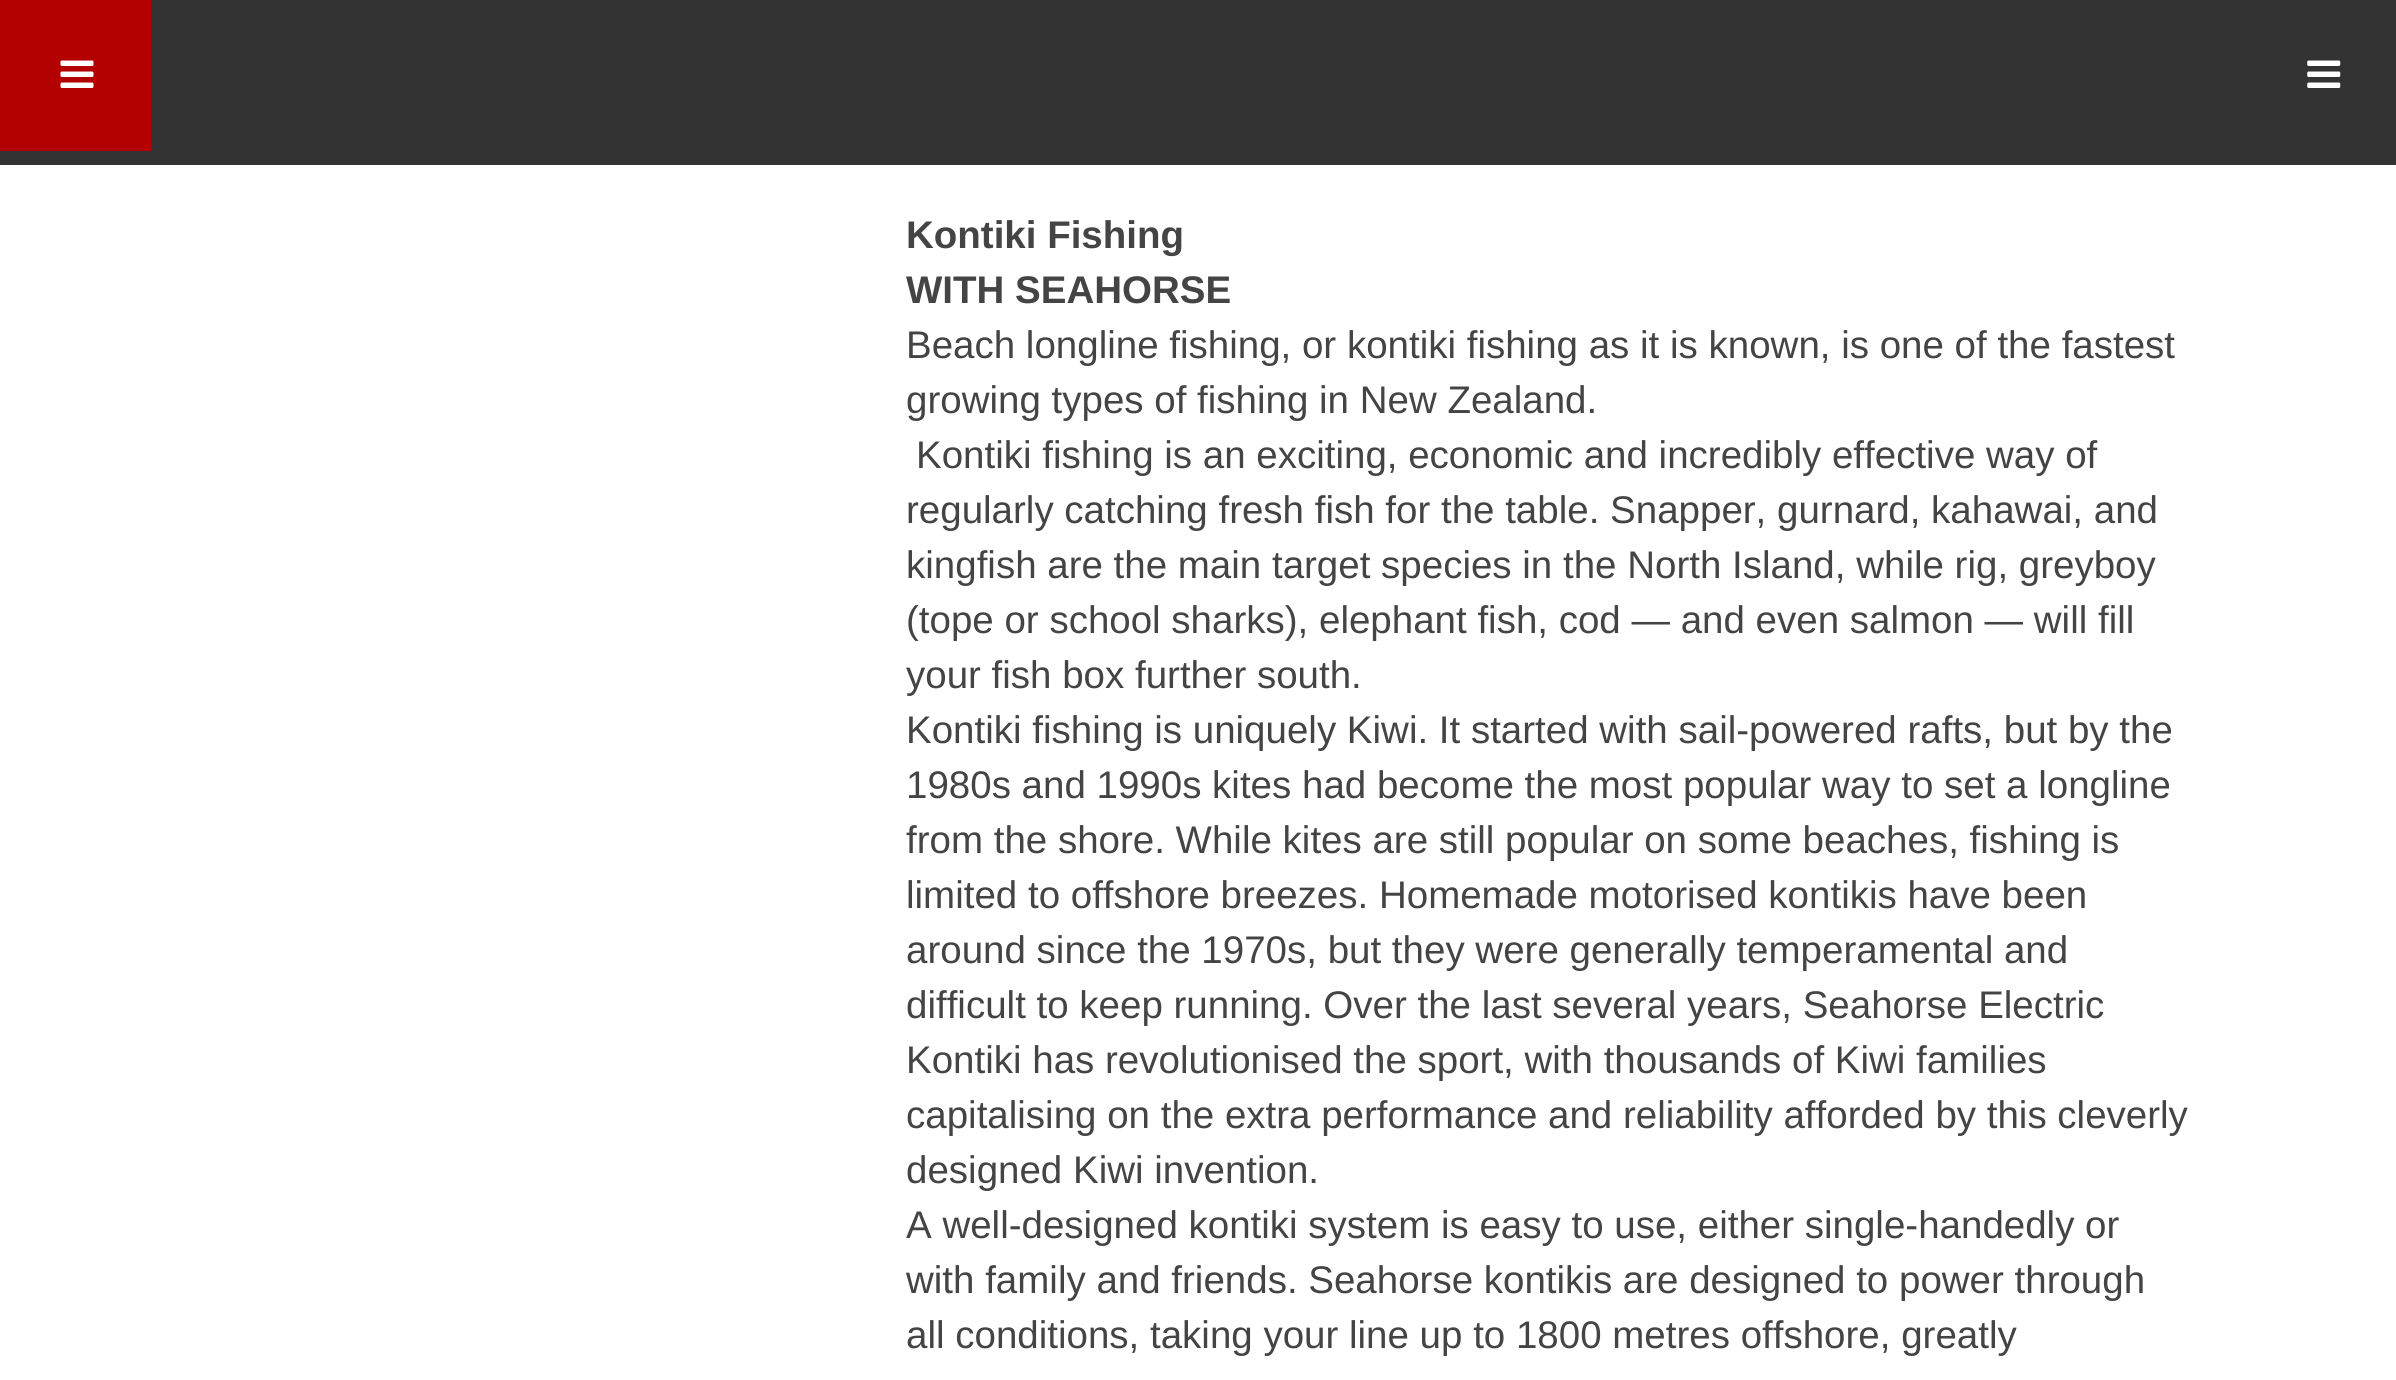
import math
import cairo

surface = cairo.ImageSurface(cairo.FORMAT_RGB24, 2396, 1380)
c = cairo.Context(surface)
options = cairo.FontOptions()
options.set_hint_metrics(cairo.HINT_METRICS_OFF)
options.set_hint_style(cairo.HINT_STYLE_NONE)
c.set_font_options(options)
c.set_miter_limit(4)
def C(code):
 c.set_source_rgb(*(v / 255 for v in bytes.fromhex(code[-6:])))
def F(family, size, italic, bold):
 c.select_font_face(family, cairo.FONT_SLANT_ITALIC if italic else cairo.FONT_SLANT_NORMAL, cairo.FONT_WEIGHT_BOLD if bold else cairo.FONT_WEIGHT_NORMAL)
 c.set_font_size(size)
def T(x, y, s):
 c.move_to(x, y)
 c.show_text(s)
def R(x, y, w, h):
 c.rectangle(x, y, w, h)
 c.fill()
def I(path, x, y, w, h):
 c.save()
 c.set_source_surface(cairo.ImageSurface.create_from_png(path), x, y)
 c.rectangle(x, y, w, h)
 c.fill()
 c.restore()
C('ffffff')
c.paint()
C('333333')
R(0,0,2396,165)
C('b30000')
R(0,0,151,151)
I('1.png',60,60,34,28)
I('2.png',2307,60,34,28)
F('Liberation Sans',38.5,0,1)
C('444444')
T(906,248,'Kontiki Fishing')
T(906,303,'WITH SEAHORSE')
F('Liberation Sans',38.5,0,0)
T(906,358,'Beach longline fishing, or kontiki fishing as it is known, is one of the fastest')
T(906,413,'growing types of fishing in New Zealand.')
T(916,468,'Kontiki fishing is an exciting, economic and incredibly effective way of')
T(906,523,'regularly catching fresh fish for the table. Snapper, gurnard, kahawai, and')
T(906,578,'kingfish are the main target species in the North Island, while rig, greyboy')
T(906,633,'(tope or school sharks), elephant fish, cod — and even salmon — will fill')
T(906,688,'your fish box further south.')
T(906,743,'Kontiki fishing is uniquely Kiwi. It started with sail-powered rafts, but by the')
T(906,798,'1980s and 1990s kites had become the most popular way to set a longline')
T(906,853,'from the shore. While kites are still popular on some beaches, fishing is')
T(906,908,'limited to offshore breezes. Homemade motorised kontikis have been')
T(906,963,'around since the 1970s, but they were generally temperamental and')
T(906,1018,'difficult to keep running. Over the last several years, Seahorse Electric')
T(906,1073,'Kontiki has revolutionised the sport, with thousands of Kiwi families')
T(906,1128,'capitalising on the extra performance and reliability afforded by this cleverly')
T(906,1183,'designed Kiwi invention.')
T(906,1238,'A well-designed kontiki system is easy to use, either single-handedly or')
T(906,1293,'with family and friends. Seahorse kontikis are designed to power through')
T(906,1348,'all conditions, taking your line up to 1800 metres offshore, greatly')
surface.write_to_png('o.png')
